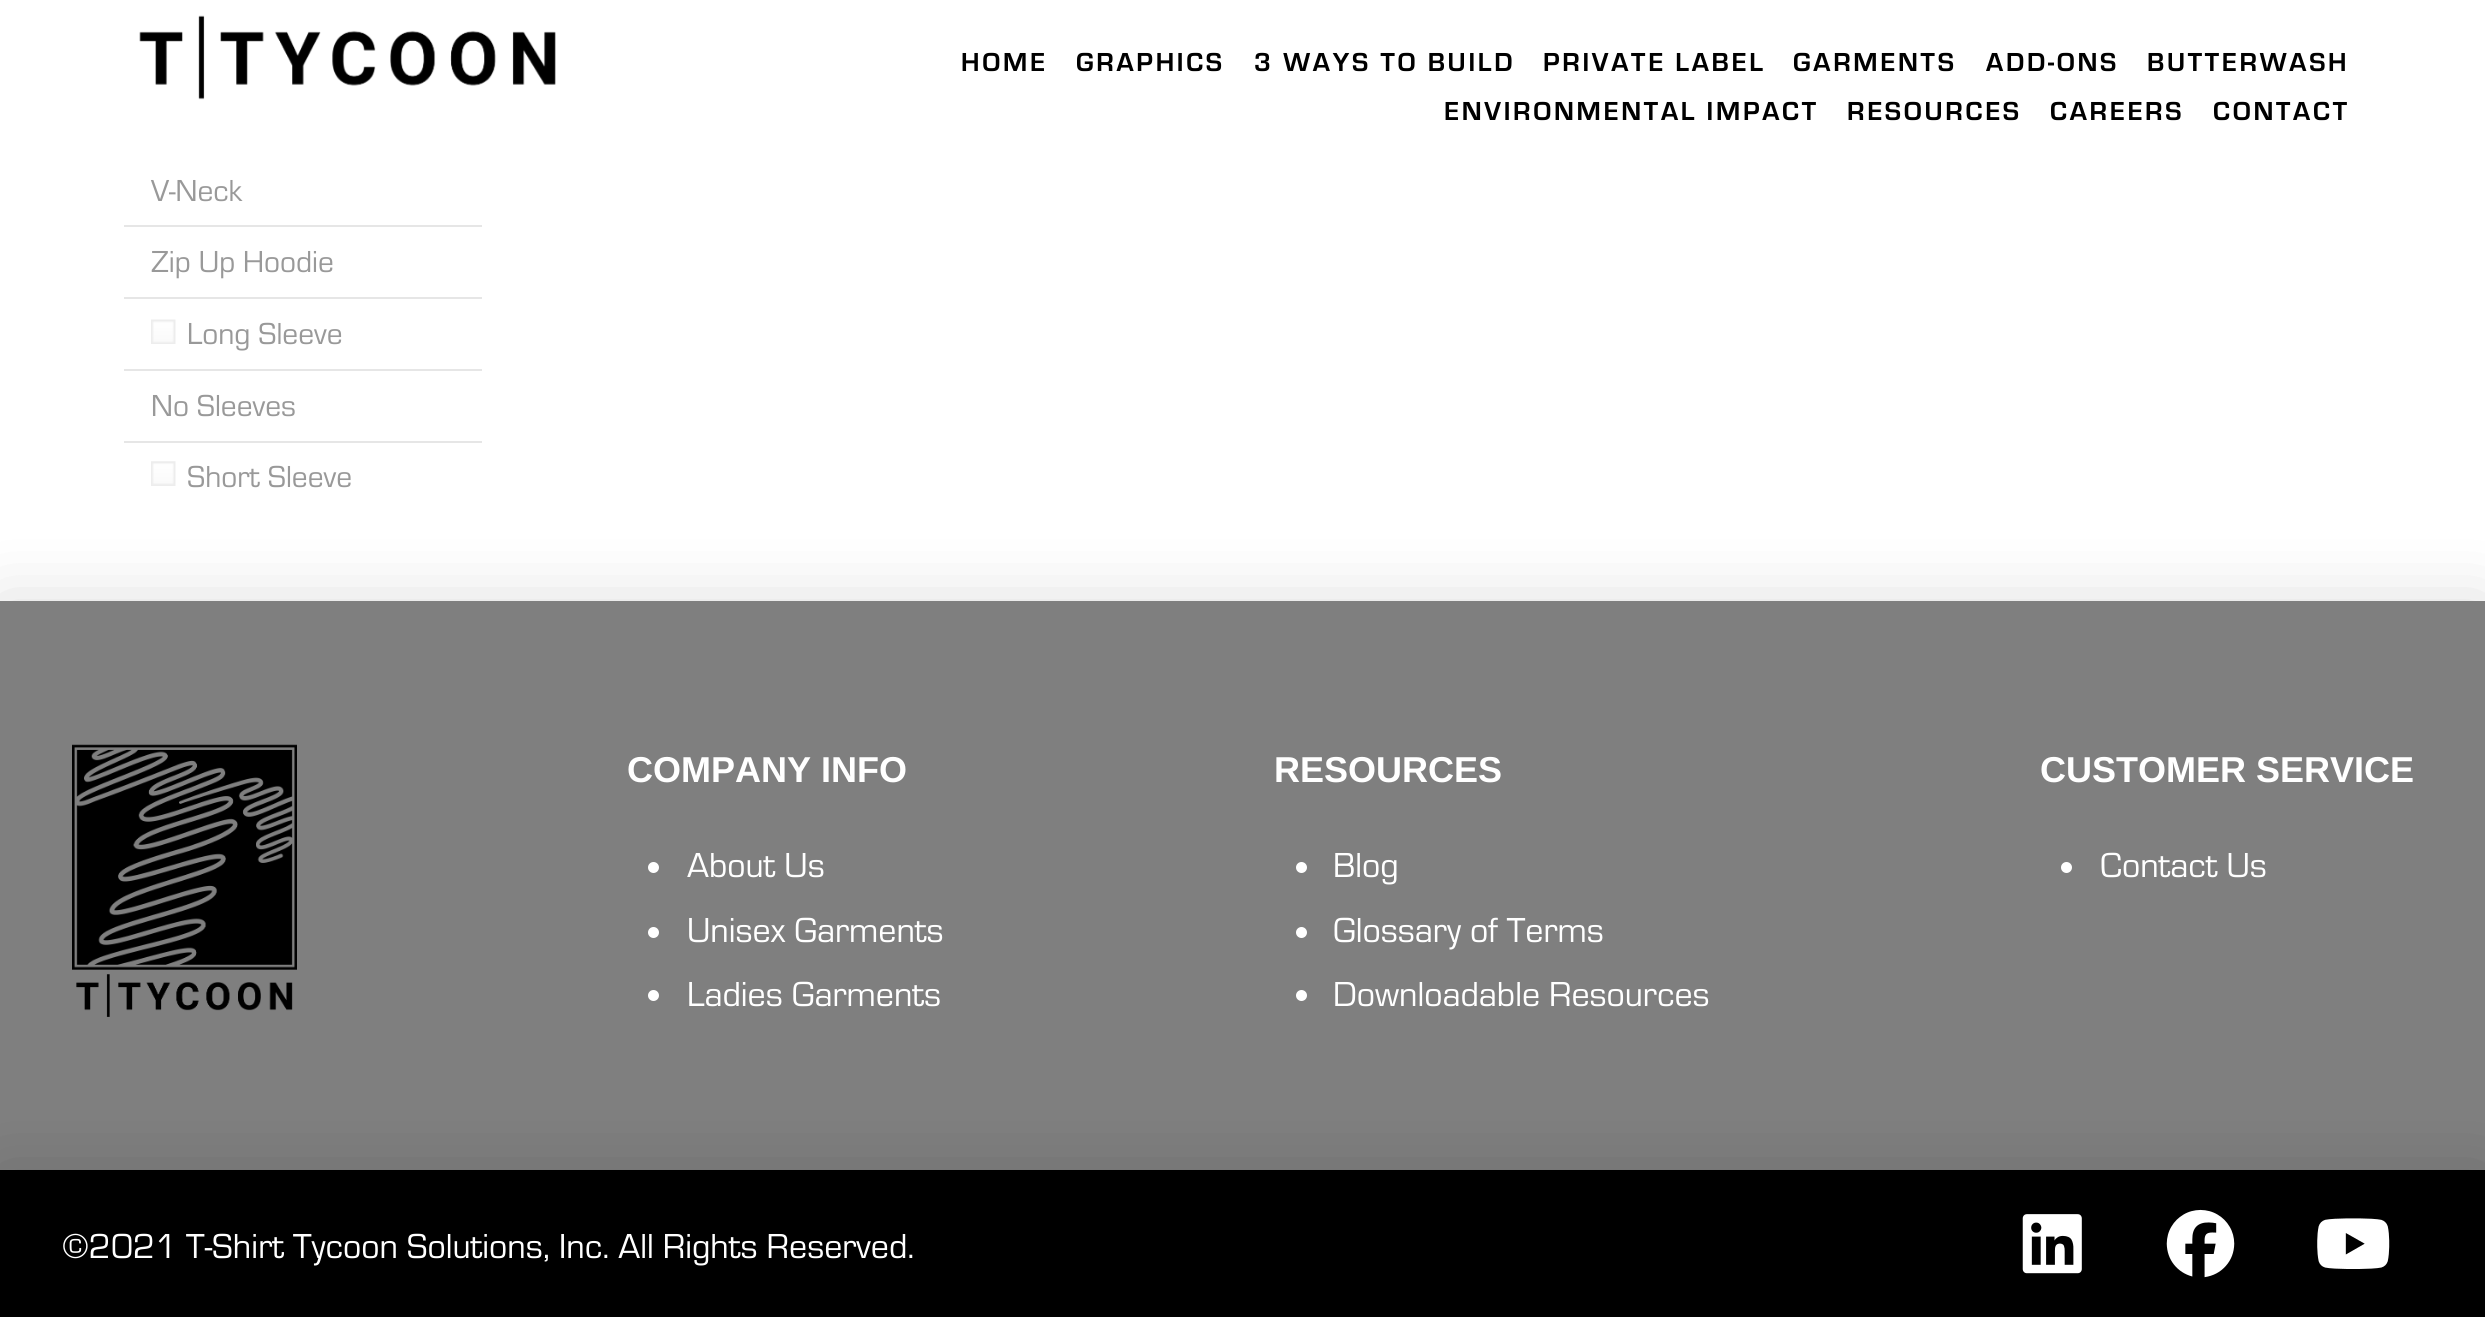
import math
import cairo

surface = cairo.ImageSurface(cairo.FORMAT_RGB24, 2485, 1317)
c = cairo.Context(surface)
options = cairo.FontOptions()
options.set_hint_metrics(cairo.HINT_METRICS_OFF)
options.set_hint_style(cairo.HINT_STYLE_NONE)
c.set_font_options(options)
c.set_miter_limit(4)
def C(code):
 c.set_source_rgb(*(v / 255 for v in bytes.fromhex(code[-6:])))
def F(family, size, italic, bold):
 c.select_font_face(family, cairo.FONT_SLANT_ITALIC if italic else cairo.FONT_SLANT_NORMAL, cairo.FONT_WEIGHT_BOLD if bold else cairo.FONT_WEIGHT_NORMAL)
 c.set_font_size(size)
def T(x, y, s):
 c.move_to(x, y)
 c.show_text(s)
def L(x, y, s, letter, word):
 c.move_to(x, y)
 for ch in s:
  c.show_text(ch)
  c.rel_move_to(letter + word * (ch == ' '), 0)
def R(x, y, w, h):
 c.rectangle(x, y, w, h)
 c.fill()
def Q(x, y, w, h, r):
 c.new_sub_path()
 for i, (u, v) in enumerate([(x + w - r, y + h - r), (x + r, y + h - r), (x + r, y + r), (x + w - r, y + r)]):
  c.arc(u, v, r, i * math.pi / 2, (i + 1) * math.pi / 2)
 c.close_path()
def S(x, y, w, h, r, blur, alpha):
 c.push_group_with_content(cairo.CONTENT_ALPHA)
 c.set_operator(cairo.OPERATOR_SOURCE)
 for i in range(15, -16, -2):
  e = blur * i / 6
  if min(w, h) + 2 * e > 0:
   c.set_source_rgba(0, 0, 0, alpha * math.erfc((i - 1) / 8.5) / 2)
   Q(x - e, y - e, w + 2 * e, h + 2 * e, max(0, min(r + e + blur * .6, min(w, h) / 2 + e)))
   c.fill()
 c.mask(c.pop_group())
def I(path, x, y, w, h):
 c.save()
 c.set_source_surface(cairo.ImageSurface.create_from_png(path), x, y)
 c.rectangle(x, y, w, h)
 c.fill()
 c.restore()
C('ffffff')
c.paint()
I('1.png',139,15,417,85)
F('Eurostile',27,0,1)
C('000000')
L(961,71,'HOME',2.75,0)
L(1076,71,'GRAPHICS',2.75,0)
L(1254,71,'3 WAYS TO BUILD',2.75,0)
L(1543,71,'PRIVATE LABEL',2.75,0)
L(1793,71,'GARMENTS',2.75,0)
L(1986,71,'ADD-ONS',2.75,0)
L(2147,71,'BUTTERWASH',2.75,0)
L(1444,120,'ENVIRONMENTAL IMPACT',2.75,0)
L(1847,120,'RESOURCES',2.75,0)
L(2050,120,'CAREERS',2.75,0)
L(2213,120,'CONTACT',2.75,0)
C('e6e6e6')
R(124,225,358,2)
F('Eurostile',31.5,0,0)
C('999999')
T(151,201,'V-Neck')
C('e6e6e6')
R(124,297,358,2)
C('999999')
T(151,272,'Zip Up Hoodie')
C('e6e6e6')
R(124,369,358,2)
I('2.png',151,319,25,25)
C('999999')
T(187,344,'Long Sleeve')
C('e6e6e6')
R(124,441,358,2)
C('999999')
T(151,416,'No Sleeves')
I('3.png',151,461,25,25)
T(187,487,'Short Sleeve')
C('000000')
S(0,605,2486,570,0,36,.15)
C('7f7f7f')
R(0,601,2485,569)
I('4.png',72,744,225,273)
F('Liberation Sans',36,0,1)
C('ffffff')
T(627,782,'COMPANY INFO')
c.new_path()
c.arc(653.5,867.5,5.5,0,2 * math.pi)
c.fill()
F('Eurostile',36,0,0)
T(687,877,'About Us')
c.new_path()
c.arc(653.5,932.5,5.5,0,2 * math.pi)
c.fill()
T(687,942,'Unisex Garments')
c.new_path()
c.arc(653.5,995.5,5.5,0,2 * math.pi)
c.fill()
T(687,1006,'Ladies Garments')
F('Liberation Sans',36,0,1)
T(1274,782,'RESOURCES')
c.new_path()
c.arc(1301.5,867.5,5.5,0,2 * math.pi)
c.fill()
F('Eurostile',36,0,0)
T(1333,877,'Blog')
c.new_path()
c.arc(1301.5,932.5,5.5,0,2 * math.pi)
c.fill()
T(1333,942,'Glossary of Terms')
c.new_path()
c.arc(1301.5,995.5,5.5,0,2 * math.pi)
c.fill()
T(1333,1006,'Downloadable Resources')
F('Liberation Sans',36,0,1)
T(2040,782,'CUSTOMER SERVICE')
c.new_path()
c.arc(2066.5,867.5,5.5,0,2 * math.pi)
c.fill()
F('Eurostile',36,0,0)
T(2100,877,'Contact Us')
C('000000')
S(0,1175,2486,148,0,36,.15)
C('000000')
R(0,1170,2485,147)
C('ffffff')
T(62,1258,'©2021 T-Shirt Tycoon Solutions, Inc. All Rights Reserved.')
I('5.png',2022,1214,60,60)
I('6.png',2166,1209,69,69)
I('7.png',2317,1218,73,51)
surface.write_to_png('o.png')
